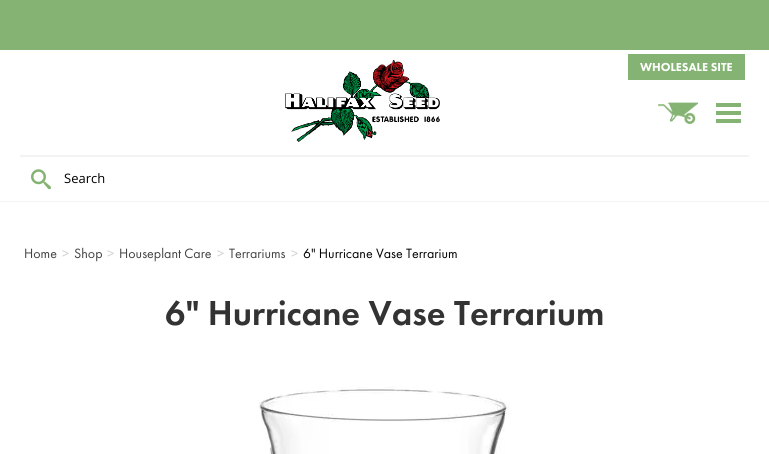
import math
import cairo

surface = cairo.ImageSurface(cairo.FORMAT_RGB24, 769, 454)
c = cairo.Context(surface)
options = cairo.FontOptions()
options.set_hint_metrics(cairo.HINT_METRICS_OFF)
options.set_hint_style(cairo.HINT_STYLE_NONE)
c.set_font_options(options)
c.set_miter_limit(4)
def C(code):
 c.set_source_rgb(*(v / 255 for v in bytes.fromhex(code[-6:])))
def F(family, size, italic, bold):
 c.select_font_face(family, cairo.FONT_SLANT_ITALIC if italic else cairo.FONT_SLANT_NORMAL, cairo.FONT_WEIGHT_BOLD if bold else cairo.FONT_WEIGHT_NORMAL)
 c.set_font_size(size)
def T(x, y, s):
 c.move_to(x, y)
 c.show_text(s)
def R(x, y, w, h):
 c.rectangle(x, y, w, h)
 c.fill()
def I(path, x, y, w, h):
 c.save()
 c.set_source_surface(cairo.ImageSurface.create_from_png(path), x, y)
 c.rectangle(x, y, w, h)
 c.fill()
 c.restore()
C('ffffff')
c.paint()
C('85b373')
R(0,0,769,50)
C('f3f3f3')
R(0,201,769,1)
I('1.png',285,60,155,82)
C('85b373')
R(628,54,117,26)
F('Futura PT Black',12,0,0)
C('ffffff')
T(640,71,'WHOLESALE SITE')
I('2.png',658,102,40,22)
C('85b373')
R(716,103,25,4)
R(716,111,25,4)
R(716,119,25,4)
C('f3f3f3')
R(20,155,729,2)
I('3.png',31,169,20,21)
F('Open Sans',13,0,0)
C('000000')
T(64,183,'Search')
F('Futura PT',14,0,0)
C('414141')
T(24,258,'Home')
C('cccccc')
T(62,258,'>')
C('414141')
T(74,258,'Shop')
C('cccccc')
T(107,258,'>')
C('414141')
T(119,258,'Houseplant Care')
C('cccccc')
T(217,258,'>')
C('414141')
T(229,258,'Terrariums')
C('cccccc')
T(291,258,'>')
C('000000')
T(303,258,'6" Hurricane Vase Terrarium')
F('Futura PT Medium',36,0,0)
C('333333')
T(165,325,'6" Hurricane Vase Terrarium')
I('4.png',258,386,251,68)
surface.write_to_png('o.png')
